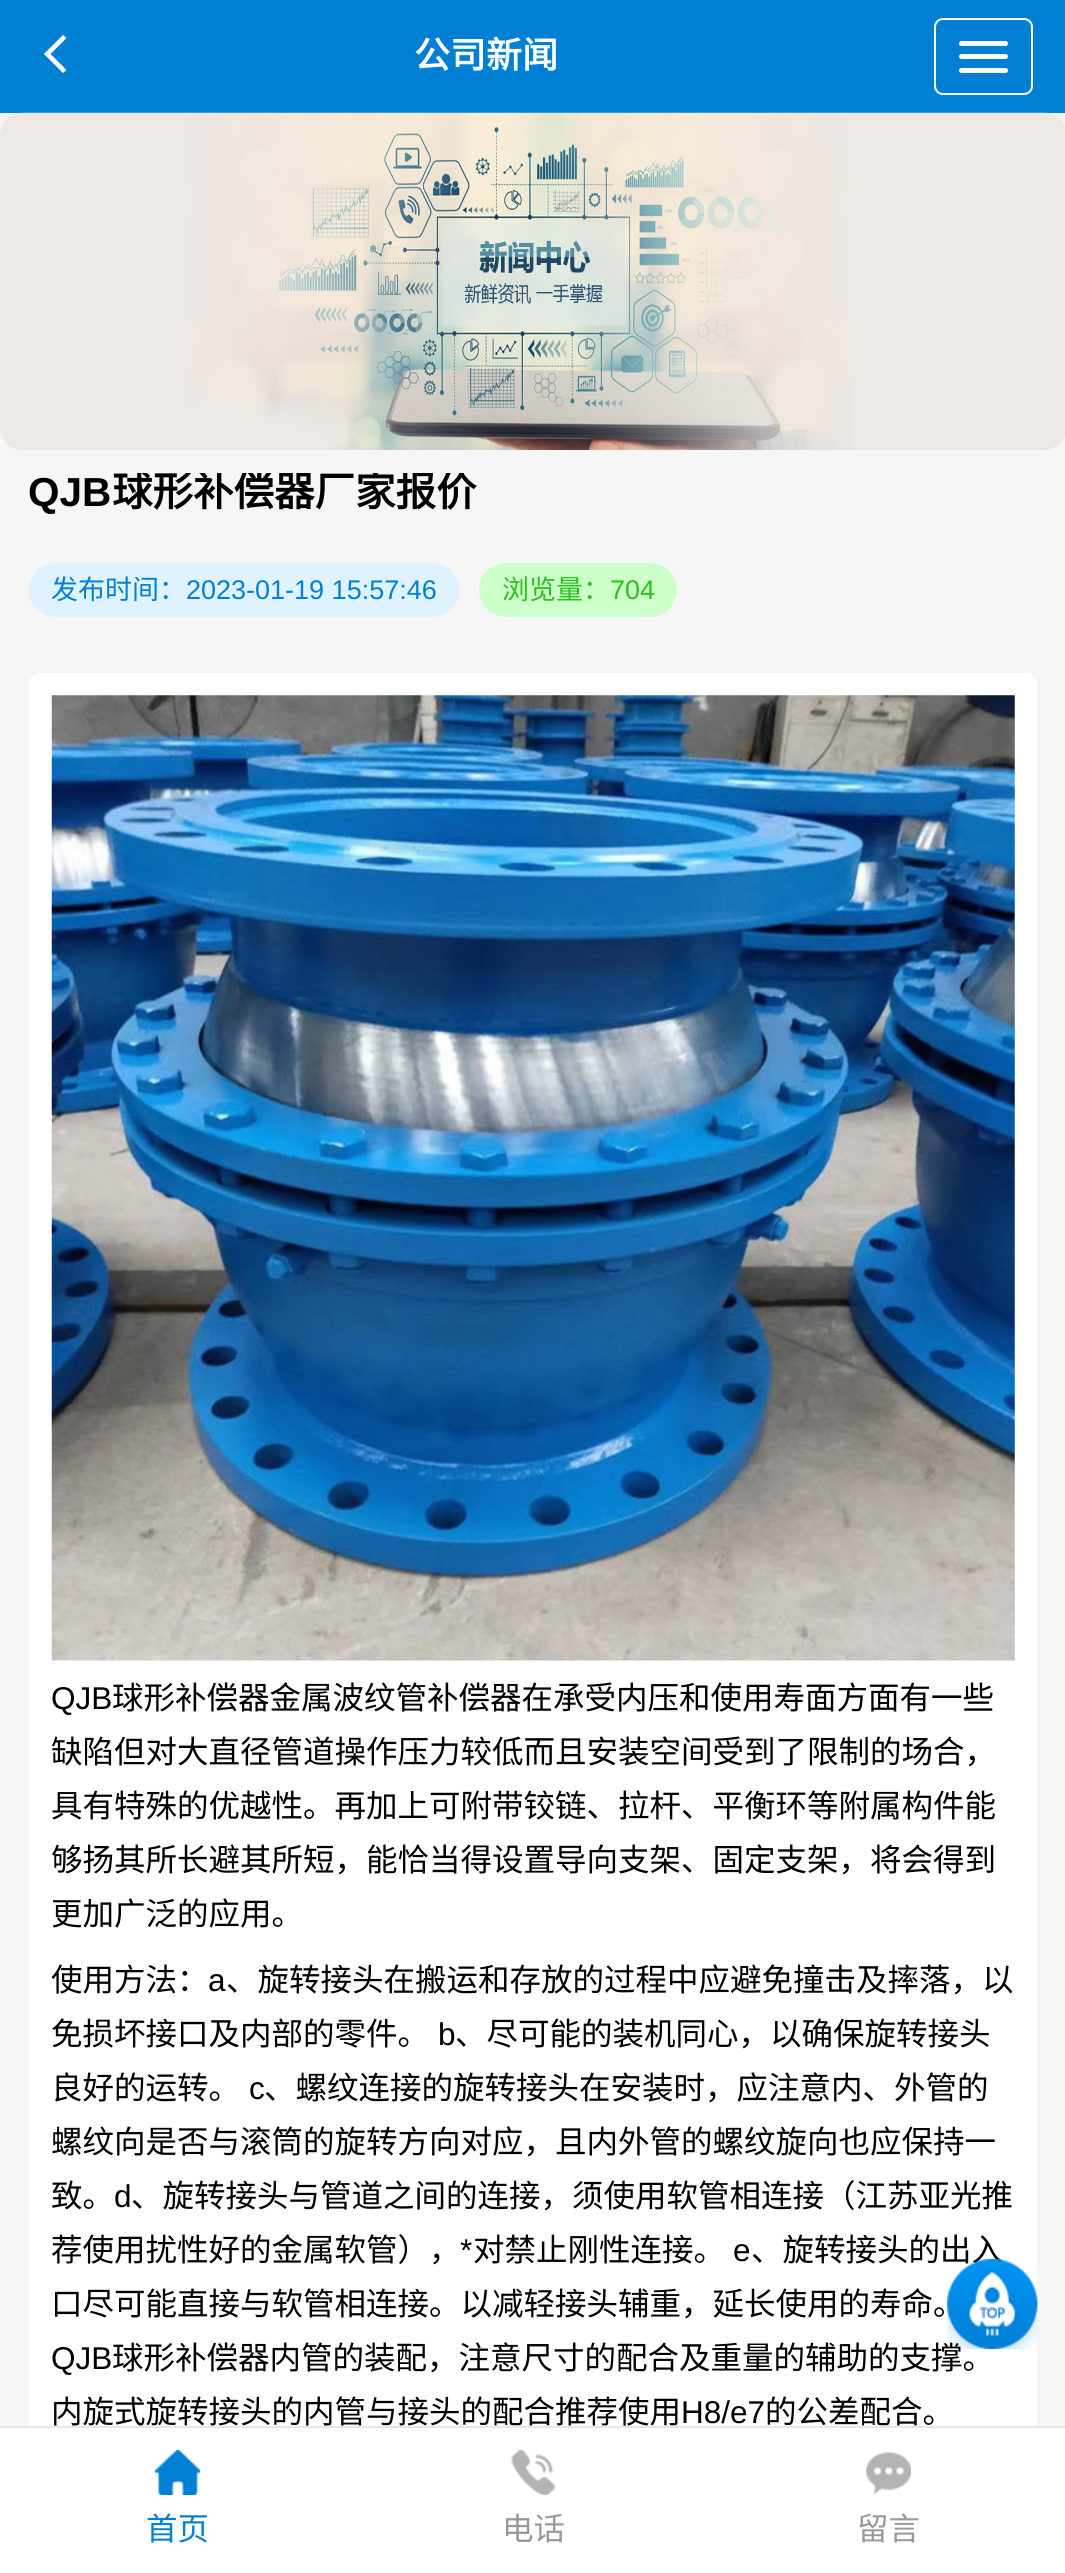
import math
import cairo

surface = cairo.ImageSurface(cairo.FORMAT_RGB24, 1065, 2573)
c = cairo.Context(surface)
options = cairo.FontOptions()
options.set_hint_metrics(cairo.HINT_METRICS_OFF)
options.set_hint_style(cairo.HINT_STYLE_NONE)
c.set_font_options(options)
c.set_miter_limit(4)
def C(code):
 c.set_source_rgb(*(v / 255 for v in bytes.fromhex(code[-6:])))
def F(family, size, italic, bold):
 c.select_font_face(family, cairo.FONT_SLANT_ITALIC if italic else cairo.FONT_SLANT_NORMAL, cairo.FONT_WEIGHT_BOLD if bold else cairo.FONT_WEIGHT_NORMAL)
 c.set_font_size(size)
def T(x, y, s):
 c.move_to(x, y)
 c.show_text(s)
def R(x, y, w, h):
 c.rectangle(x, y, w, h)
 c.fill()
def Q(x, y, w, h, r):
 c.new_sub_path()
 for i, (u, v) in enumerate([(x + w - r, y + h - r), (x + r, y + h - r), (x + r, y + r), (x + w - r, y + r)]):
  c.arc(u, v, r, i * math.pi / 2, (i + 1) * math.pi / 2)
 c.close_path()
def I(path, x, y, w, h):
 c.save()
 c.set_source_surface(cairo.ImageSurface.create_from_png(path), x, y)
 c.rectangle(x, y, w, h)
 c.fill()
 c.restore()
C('f6f6f6')
c.paint()
C('0080d5')
R(0,0,1065,113)
C('ffffff')
c.new_path()
c.move_to(63,73)
c.line_to(44,54)
c.line_to(47.5,51)
c.line_to(66.5,70)
c.close_path()
c.fill()
c.new_path()
c.move_to(47.5,57)
c.line_to(44,54)
c.line_to(63,35)
c.line_to(66.5,38)
c.close_path()
c.fill()
F('Noto Sans CJK SC',36,0,1)
T(414,68,'公司新闻')
Q(935,19,97,75,8)
c.stroke()
Q(959,41,49,5,2.5)
c.fill()
Q(959,54,49,5,2.5)
c.fill()
Q(959,68,49,5,2.5)
c.fill()
I('1.png',0,112,1065,338)
F('Liberation Sans',40.5,0,1)
C('000000')
T(28,506,'QJB')
c.save()
c.rectangle(29,473,1008,45)
c.clip()
F('Noto Sans CJK SC',40.5,0,1)
T(112,506,'球形补偿器厂家报价')
c.restore()
C('def2ff')
Q(29,563,430,54,27)
c.fill()
F('Noto Sans CJK SC',27,0,0)
C('0080d5')
T(51,599,'发布时间：')
F('Liberation Sans',27,0,0)
T(186,599,'2023-01-19 15:57:46')
C('cdffc9')
Q(479,563,198,54,27)
c.fill()
F('Noto Sans CJK SC',27,0,0)
C('28c21c')
T(502,599,'浏览量：')
F('Liberation Sans',27,0,0)
T(610,599,'704')
C('ffffff')
Q(29,673,1008,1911,11)
c.fill()
I('2.png',51,695,964,966)
F('Liberation Sans',31.5,0,0)
C('000000')
T(51,1709,'QJB')
F('Noto Sans CJK SC',31.5,0,0)
T(112,1709,'球形补偿器金属波纹管补偿器在承受内压和使用寿面方面有一些')
T(51,1763,'缺陷但对大直径管道操作压力较低而且安装空间受到了限制的场合，')
T(51,1817,'具有特殊的优越性。再加上可附带铰链、拉杆、平衡环等附属构件能')
T(51,1871,'够扬其所长避其所短，能恰当得设置导向支架、固定支架，将会得到')
T(51,1925,'更加广泛的应用。')
T(51,1991,'使用方法：')
F('Liberation Sans',31.5,0,0)
T(208,1991,'a')
F('Noto Sans CJK SC',31.5,0,0)
T(226,1991,'、旋转接头在搬运和存放的过程中应避免撞击及摔落，以')
T(51,2045,'免损坏接口及内部的零件。')
F('Liberation Sans',31.5,0,0)
T(438,2045,'b')
F('Noto Sans CJK SC',31.5,0,0)
T(455,2045,'、尽可能的装机同心，以确保旋转接头')
T(51,2099,'良好的运转。')
F('Liberation Sans',31.5,0,0)
T(249,2099,'c')
F('Noto Sans CJK SC',31.5,0,0)
T(264,2099,'、螺纹连接的旋转接头在安装时，应注意内、外管的')
T(51,2153,'螺纹向是否与滚筒的旋转方向对应，且内外管的螺纹旋向也应保持一')
T(51,2207,'致。')
F('Liberation Sans',31.5,0,0)
T(114,2207,'d')
F('Noto Sans CJK SC',31.5,0,0)
T(131,2207,'、旋转接头与管道之间的连接，须使用软管相连接（江苏亚光推')
T(51,2261,'荐使用扰性好的金属软管），')
F('Liberation Sans',31.5,0,0)
T(460,2261,'*')
F('Noto Sans CJK SC',31.5,0,0)
T(473,2261,'对禁止刚性连接。')
F('Liberation Sans',31.5,0,0)
T(733,2261,'e')
F('Noto Sans CJK SC',31.5,0,0)
T(751,2261,'、旋转接头的出入')
T(51,2315,'口尽可能直接与软管相连接。以减轻接头辅重，延长使用的寿命。')
F('Liberation Sans',31.5,0,0)
T(51,2369,'QJB')
F('Noto Sans CJK SC',31.5,0,0)
T(112,2369,'球形补偿器内管的装配，注意尺寸的配合及重量的辅助的支撑。')
T(51,2423,'内旋式旋转接头的内管与接头的配合推荐使用')
F('Liberation Sans',31.5,0,0)
T(681,2423,'H8/e7')
F('Noto Sans CJK SC',31.5,0,0)
T(765,2423,'的公差配合。')
I('3.png',947,2259,91,90)
C('ffffff')
R(0,2428,1065,145)
C('e6e6e6')
R(0,2426,1065,2)
I('4.png',155,2450,46,45)
C('0080d5')
T(146,2540,'首页')
I('5.png',511,2450,45,45)
C('999999')
T(502,2540,'电话')
I('6.png',866,2452,45,43)
T(857,2540,'留言')
surface.write_to_png('o.png')
